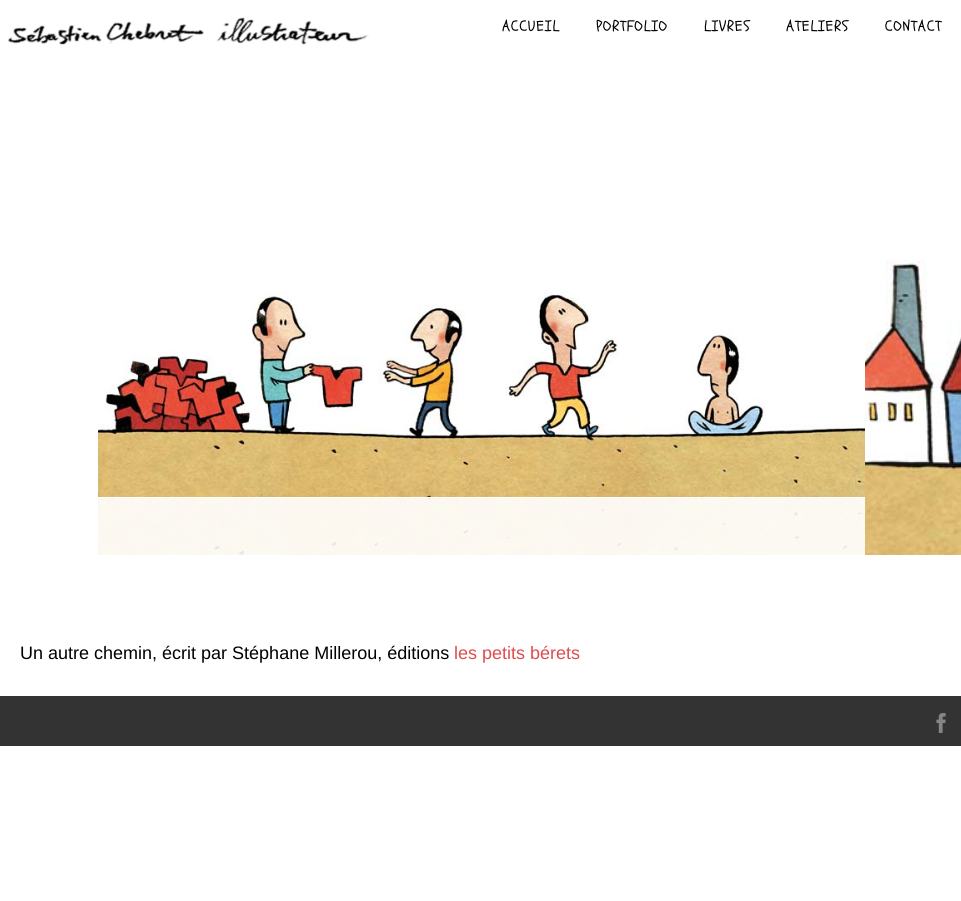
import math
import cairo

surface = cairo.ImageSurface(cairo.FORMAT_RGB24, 961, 901)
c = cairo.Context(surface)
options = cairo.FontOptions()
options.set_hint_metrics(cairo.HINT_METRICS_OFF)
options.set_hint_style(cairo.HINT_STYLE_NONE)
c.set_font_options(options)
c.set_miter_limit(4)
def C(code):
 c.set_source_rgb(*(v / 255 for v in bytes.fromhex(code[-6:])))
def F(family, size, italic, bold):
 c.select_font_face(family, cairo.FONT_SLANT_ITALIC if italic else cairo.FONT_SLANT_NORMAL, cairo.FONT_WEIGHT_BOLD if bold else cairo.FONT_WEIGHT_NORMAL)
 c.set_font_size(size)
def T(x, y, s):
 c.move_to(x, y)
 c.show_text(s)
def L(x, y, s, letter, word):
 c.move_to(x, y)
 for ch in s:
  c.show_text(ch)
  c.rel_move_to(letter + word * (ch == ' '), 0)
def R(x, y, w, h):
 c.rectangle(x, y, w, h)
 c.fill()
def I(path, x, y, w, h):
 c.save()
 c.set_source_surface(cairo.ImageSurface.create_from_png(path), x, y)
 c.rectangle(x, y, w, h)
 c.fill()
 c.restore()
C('ffffff')
c.paint()
I('1.png',8,17,362,28)
F('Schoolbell',15,0,0)
C('000000')
L(502,31,'ACCUEIL',1,0)
L(596,31,'PORTFOLIO',1,0)
L(704,31,'LIVRES',1,0)
L(786,31,'ATELIERS',1,0)
L(885,31,'CONTACT',1,0)
I('2.png',98,291,767,206)
I('3.png',865,259,96,296)
I('4.png',98,498,767,57)
F('Liberation Sans',18,0,0)
T(20,659,'Un autre chemin, écrit par Stéphane Millerou, éditions')
C('de4d4d')
T(454,659,'les petits bérets')
C('333333')
R(0,696,961,50)
I('5.png',936,713,10,20)
surface.write_to_png('o.png')
